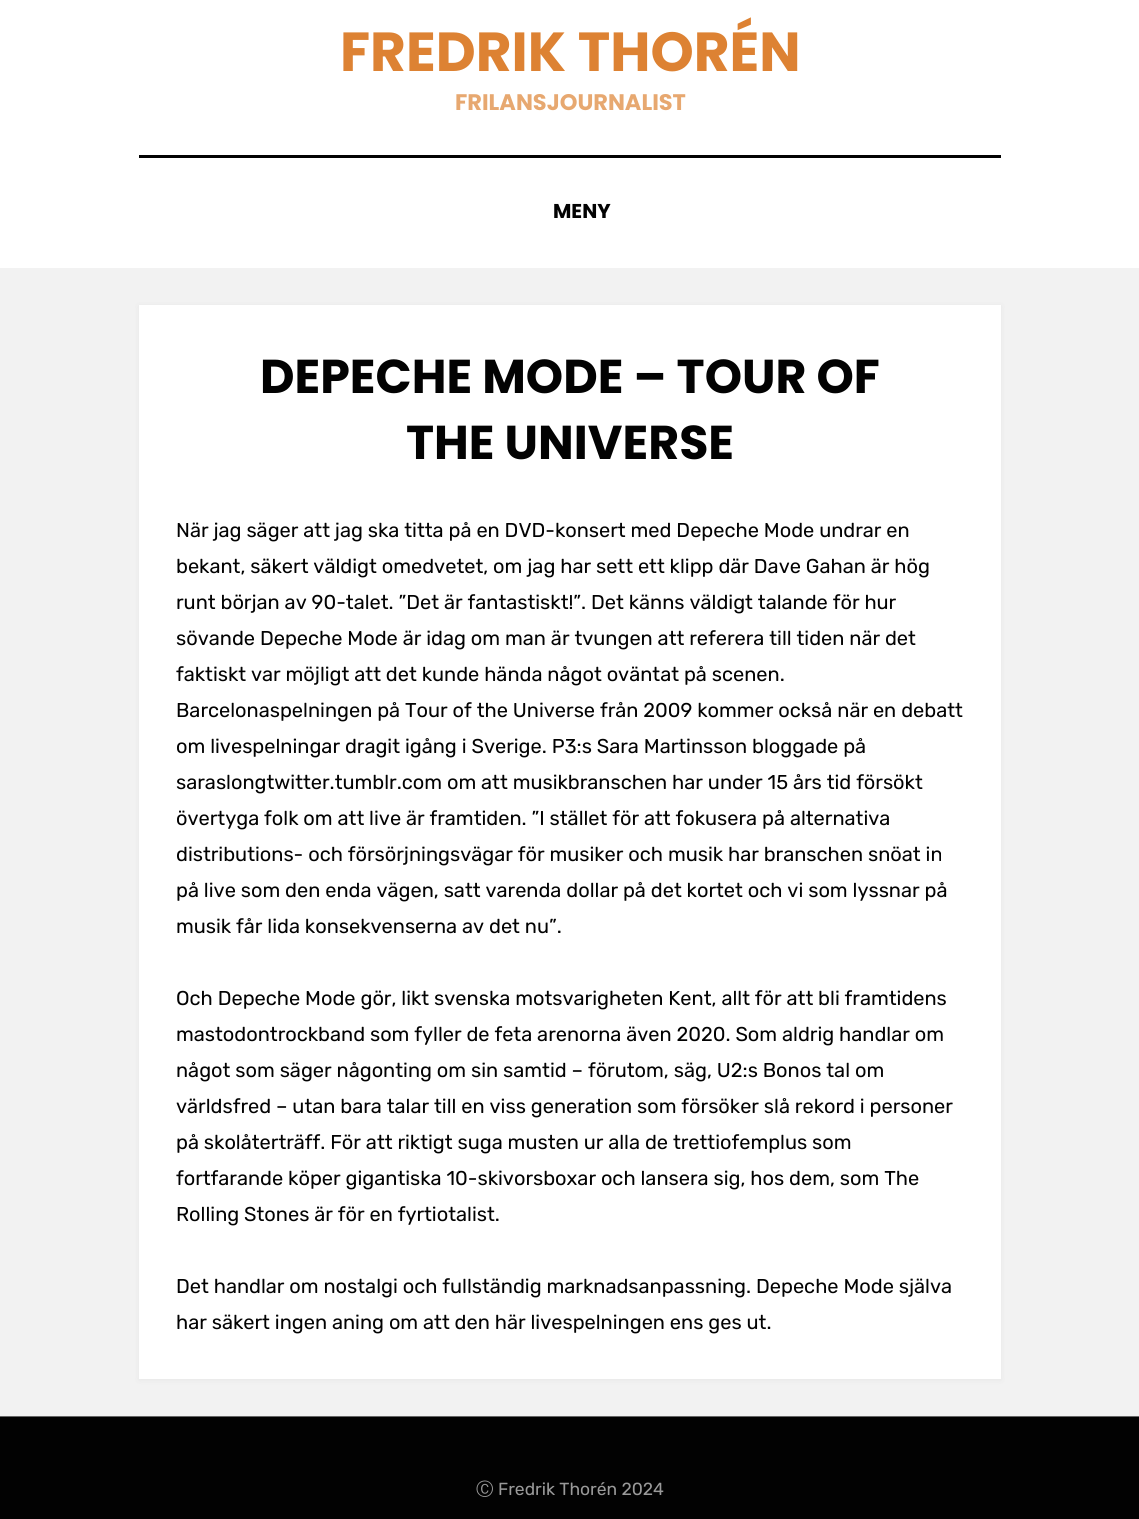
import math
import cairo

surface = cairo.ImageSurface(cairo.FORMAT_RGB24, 1139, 1519)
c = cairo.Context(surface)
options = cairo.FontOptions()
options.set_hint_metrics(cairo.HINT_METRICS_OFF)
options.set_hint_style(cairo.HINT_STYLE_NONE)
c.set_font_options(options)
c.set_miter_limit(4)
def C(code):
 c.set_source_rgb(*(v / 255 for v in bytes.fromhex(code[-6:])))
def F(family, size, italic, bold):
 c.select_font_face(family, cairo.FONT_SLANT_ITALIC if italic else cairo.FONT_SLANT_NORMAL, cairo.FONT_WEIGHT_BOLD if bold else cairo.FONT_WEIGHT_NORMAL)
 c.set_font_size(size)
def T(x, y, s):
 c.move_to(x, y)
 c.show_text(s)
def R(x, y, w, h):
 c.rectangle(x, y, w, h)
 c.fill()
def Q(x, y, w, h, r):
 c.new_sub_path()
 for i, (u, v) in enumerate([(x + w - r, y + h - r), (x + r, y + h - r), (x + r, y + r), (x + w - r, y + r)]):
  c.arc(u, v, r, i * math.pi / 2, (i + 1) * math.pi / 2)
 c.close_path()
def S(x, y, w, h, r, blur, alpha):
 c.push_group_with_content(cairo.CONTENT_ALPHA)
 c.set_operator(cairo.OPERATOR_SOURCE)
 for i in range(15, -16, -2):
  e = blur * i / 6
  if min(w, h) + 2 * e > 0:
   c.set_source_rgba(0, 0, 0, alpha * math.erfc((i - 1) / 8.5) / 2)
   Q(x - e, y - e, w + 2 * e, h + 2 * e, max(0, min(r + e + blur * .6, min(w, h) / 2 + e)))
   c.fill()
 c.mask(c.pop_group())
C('f2f2f2')
c.paint()
C('ffffff')
R(0,0,1139,268)
F('Poppins',55,0,1)
C('dd8233')
T(340,71,'FREDRIK THORÉN')
F('Poppins',22.5,0,1)
C('e7a870')
T(455,110,'FRILANSJOURNALIST')
C('020202')
R(139,155,862,3)
F('Poppins',20,0,1)
T(553,218,'MENY')
C('000001')
S(139,306,862,1074,0,3,.05)
C('ffffff')
R(139,305,862,1074)
F('Poppins',47.5,0,1)
C('020202')
T(260,393,'DEPECHE MODE – TOUR OF')
T(406,459,'THE UNIVERSE')
F('Rubik',20,0,0)
T(176,537,'När jag säger att jag ska titta på en DVD-konsert med Depeche Mode undrar en')
T(176,573,'bekant, säkert väldigt omedvetet, om jag har sett ett klipp där Dave Gahan är hög')
T(176,609,'runt början av 90-talet. ”Det är fantastiskt!”. Det känns väldigt talande för hur')
T(176,645,'sövande Depeche Mode är idag om man är tvungen att referera till tiden när det')
T(176,681,'faktiskt var möjligt att det kunde hända något oväntat på scenen.')
T(176,717,'Barcelonaspelningen på Tour of the Universe från 2009 kommer också när en debatt')
T(176,753,'om livespelningar dragit igång i Sverige. P3:s Sara Martinsson bloggade på')
T(176,789,'saraslongtwitter.tumblr.com om att musikbranschen har under 15 års tid försökt')
T(176,825,'övertyga folk om att live är framtiden. ”I stället för att fokusera på alternativa')
T(176,861,'distributions- och försörjningsvägar för musiker och musik har branschen snöat in')
T(176,897,'på live som den enda vägen, satt varenda dollar på det kortet och vi som lyssnar på')
T(176,933,'musik får lida konsekvenserna av det nu”.')
T(176,1005,'Och Depeche Mode gör, likt svenska motsvarigheten Kent, allt för att bli framtidens')
T(176,1041,'mastodontrockband som fyller de feta arenorna även 2020. Som aldrig handlar om')
T(176,1077,'något som säger någonting om sin samtid – förutom, säg, U2:s Bonos tal om')
T(176,1113,'världsfred – utan bara talar till en viss generation som försöker slå rekord i personer')
T(176,1149,'på skolåterträff. För att riktigt suga musten ur alla de trettiofemplus som')
T(176,1185,'fortfarande köper gigantiska 10-skivorsboxar och lansera sig, hos dem, som The')
T(176,1221,'Rolling Stones är för en fyrtiotalist.')
T(176,1293,'Det handlar om nostalgi och fullständig marknadsanpassning. Depeche Mode själva')
T(176,1329,'har säkert ingen aning om att den här livespelningen ens ges ut.')
R(0,1417,1139,102)
C('666666')
R(0,1416,1139,1)
F('WenQuanYi Zen Hei Medium',17.5,0,0)
C('999999')
T(476,1495,'Ⓒ')
F('Rubik',17.5,0,0)
T(498,1495,'Fredrik Thorén 2024')
surface.write_to_png('o.png')
